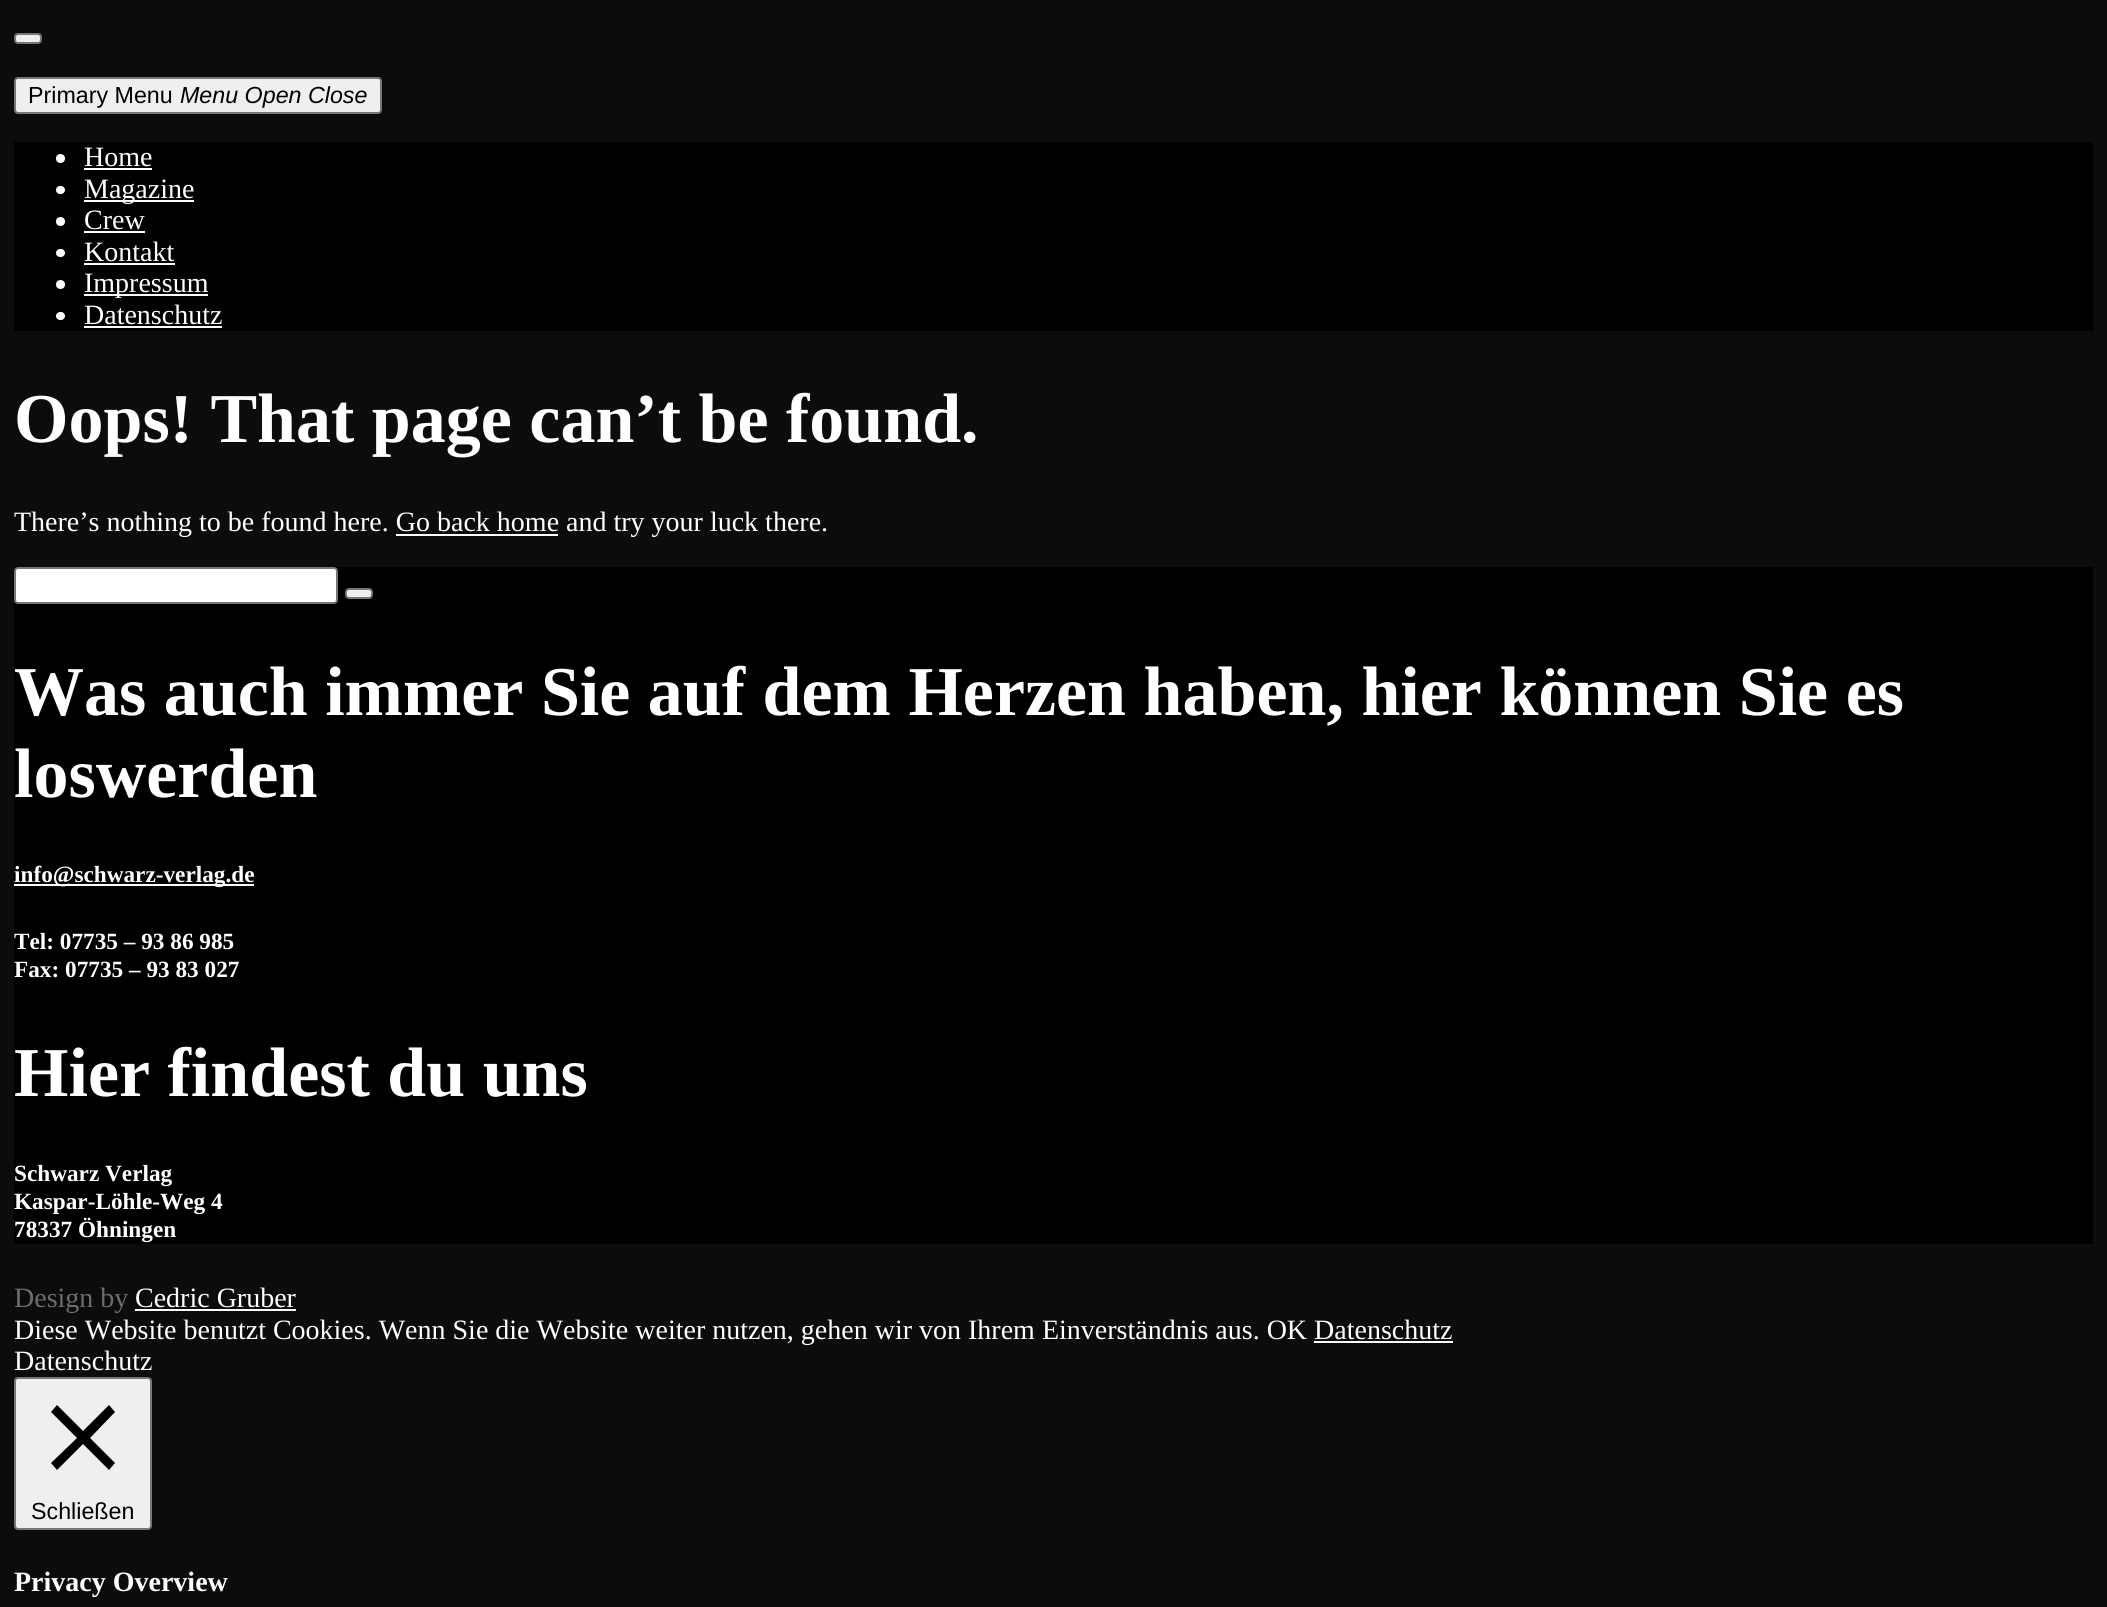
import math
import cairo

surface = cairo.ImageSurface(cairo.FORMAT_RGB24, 2107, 1607)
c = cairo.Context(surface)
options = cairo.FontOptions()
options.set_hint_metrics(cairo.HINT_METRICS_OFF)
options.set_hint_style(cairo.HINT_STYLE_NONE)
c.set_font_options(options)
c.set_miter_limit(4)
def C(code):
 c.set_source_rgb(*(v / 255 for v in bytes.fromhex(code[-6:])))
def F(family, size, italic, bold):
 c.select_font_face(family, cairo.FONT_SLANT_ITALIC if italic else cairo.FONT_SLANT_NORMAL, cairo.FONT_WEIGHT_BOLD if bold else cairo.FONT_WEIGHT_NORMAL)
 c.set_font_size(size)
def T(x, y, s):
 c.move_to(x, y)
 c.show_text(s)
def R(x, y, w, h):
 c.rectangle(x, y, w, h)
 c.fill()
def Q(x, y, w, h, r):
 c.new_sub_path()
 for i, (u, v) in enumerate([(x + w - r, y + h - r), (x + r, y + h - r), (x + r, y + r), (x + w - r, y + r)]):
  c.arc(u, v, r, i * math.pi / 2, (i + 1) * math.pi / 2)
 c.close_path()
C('0c0c0c')
c.paint()
C('efefef')
Q(15,34,26,9,3)
c.fill_preserve()
C('767676')
c.stroke()
C('efefef')
Q(15,78,366,35,3)
c.fill_preserve()
C('767676')
c.stroke()
F('Liberation Sans',23.25,0,0)
C('000000')
T(28,103,'Primary Menu')
F('Liberation Sans',23.25,1,0)
T(180,103,'Menu Open Close')
C('010101')
R(14,142,2079,189)
C('ffffff')
c.new_path()
c.arc(60.5,158.5,4.5,0,2 * math.pi)
c.fill()
F('Liberation Serif',28,0,0)
T(84,166,'Home')
R(84,168,68,2)
Q(56,186,9,8,4)
c.fill()
R(84,200,110,2)
T(84,198,'Magazine')
c.new_path()
c.arc(60.5,221.5,4.5,0,2 * math.pi)
c.fill()
T(84,229,'Crew')
R(84,231,61,2)
Q(56,249,9,8,4)
c.fill()
T(84,261,'Kontakt')
R(84,263,91,2)
c.new_path()
c.arc(60.5,284.5,4.5,0,2 * math.pi)
c.fill()
R(84,294,124,2)
T(84,292,'Impressum')
Q(56,312,9,8,4)
c.fill()
T(84,324,'Datenschutz')
R(84,326,138,2)
F('Liberation Serif',70,0,1)
T(14,442,'Oops! That page can’t be found.')
F('Liberation Serif',28,0,0)
T(14,531,'There’s nothing to be found here. Go back home and try your luck there.')
R(396,534,162,2)
C('000000')
R(14,567,2079,677)
C('ffffff')
Q(15,568,322,35,3)
c.fill_preserve()
C('767676')
c.stroke()
C('efefef')
Q(346,589,26,9,3)
c.fill_preserve()
C('767676')
c.stroke()
F('Liberation Serif',70,0,1)
C('ffffff')
T(14,715,'Was auch immer Sie auf dem Herzen haben, hier können Sie es')
T(14,797,'loswerden')
R(14,884,240,2)
F('Liberation Serif',23.25,0,1)
T(14,882,'info@schwarz-verlag.de')
T(14,949,'Tel: 07735 – 93 86 985')
T(14,977,'Fax: 07735 – 93 83 027')
F('Liberation Serif',70,0,1)
T(14,1096,'Hier findest du uns')
F('Liberation Serif',23.25,0,1)
T(14,1181,'Schwarz Verlag')
T(14,1209,'Kaspar-Löhle-Weg 4')
T(14,1237,'78337 Öhningen')
F('Liberation Serif',28,0,0)
C('6d6d6d')
T(14,1307,'Design by')
C('ffffff')
T(135,1307,'Cedric Gruber')
R(135,1309,161,2)
T(14,1339,'Diese Website benutzt Cookies. Wenn Sie die Website weiter nutzen, gehen wir von Ihrem Einverständnis aus. OK Datenschutz')
R(1314,1341,139,2)
T(14,1370,'Datenschutz')
C('efefef')
Q(15,1378,136,151,3)
c.fill_preserve()
C('767676')
c.stroke()
C('000000')
c.new_path()
c.move_to(115,1412)
c.line_to(109,1405)
c.line_to(83,1431)
c.line_to(57,1405)
c.line_to(51,1412)
c.line_to(77,1438)
c.line_to(51,1463)
c.line_to(57,1470)
c.line_to(83,1444)
c.line_to(109,1470)
c.line_to(115,1463)
c.line_to(90,1438)
c.close_path()
c.fill()
F('Liberation Sans',23.25,0,0)
T(31,1519,'Schließen')
F('Liberation Serif',28,0,1)
C('ffffff')
T(14,1591,'Privacy Overview')
surface.write_to_png('o.png')
